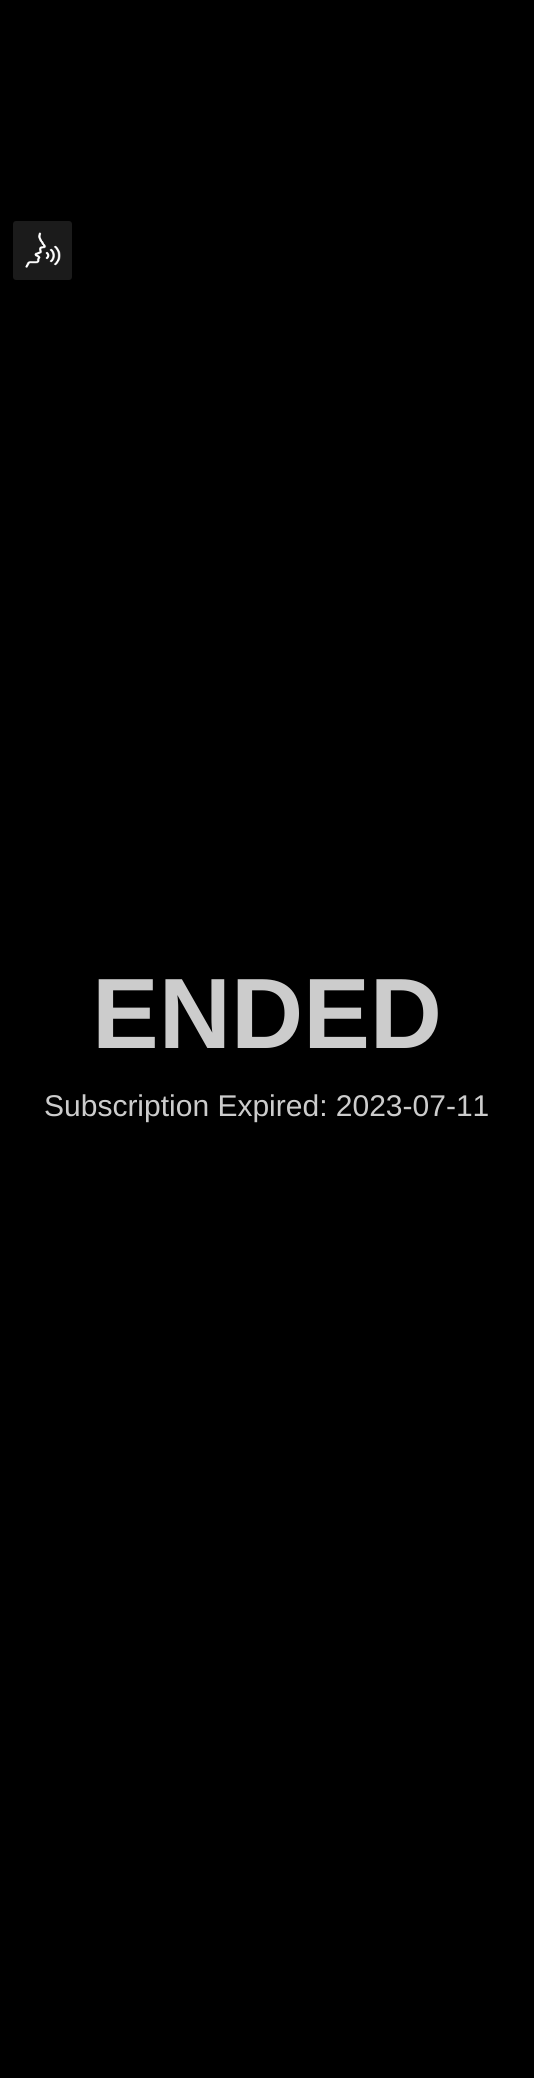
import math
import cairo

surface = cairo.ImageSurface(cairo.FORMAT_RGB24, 534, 2078)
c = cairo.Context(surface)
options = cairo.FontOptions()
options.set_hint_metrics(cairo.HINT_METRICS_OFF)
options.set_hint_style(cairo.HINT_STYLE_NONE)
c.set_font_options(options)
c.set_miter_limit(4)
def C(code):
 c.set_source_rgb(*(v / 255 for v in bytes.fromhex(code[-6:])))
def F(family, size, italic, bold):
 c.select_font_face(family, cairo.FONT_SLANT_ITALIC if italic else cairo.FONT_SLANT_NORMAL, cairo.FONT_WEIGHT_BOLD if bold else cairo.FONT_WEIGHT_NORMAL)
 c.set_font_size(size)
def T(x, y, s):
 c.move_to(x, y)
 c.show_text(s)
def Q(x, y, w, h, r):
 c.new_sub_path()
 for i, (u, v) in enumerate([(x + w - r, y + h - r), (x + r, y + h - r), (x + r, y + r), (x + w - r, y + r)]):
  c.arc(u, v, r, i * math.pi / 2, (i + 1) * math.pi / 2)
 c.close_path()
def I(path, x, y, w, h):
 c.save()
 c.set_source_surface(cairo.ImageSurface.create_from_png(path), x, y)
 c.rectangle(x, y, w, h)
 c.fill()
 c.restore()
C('000000')
c.paint()
C('1b1b1b')
Q(13,221,59,59,3)
c.fill()
I('1.png',25,232,36,36)
F('Liberation Sans',100,0,1)
C('cccccc')
T(92,1048,'ENDED')
F('Liberation Sans',30,0,0)
T(44,1116,'Subscription Expired: 2023-07-11')
surface.write_to_png('o.png')
